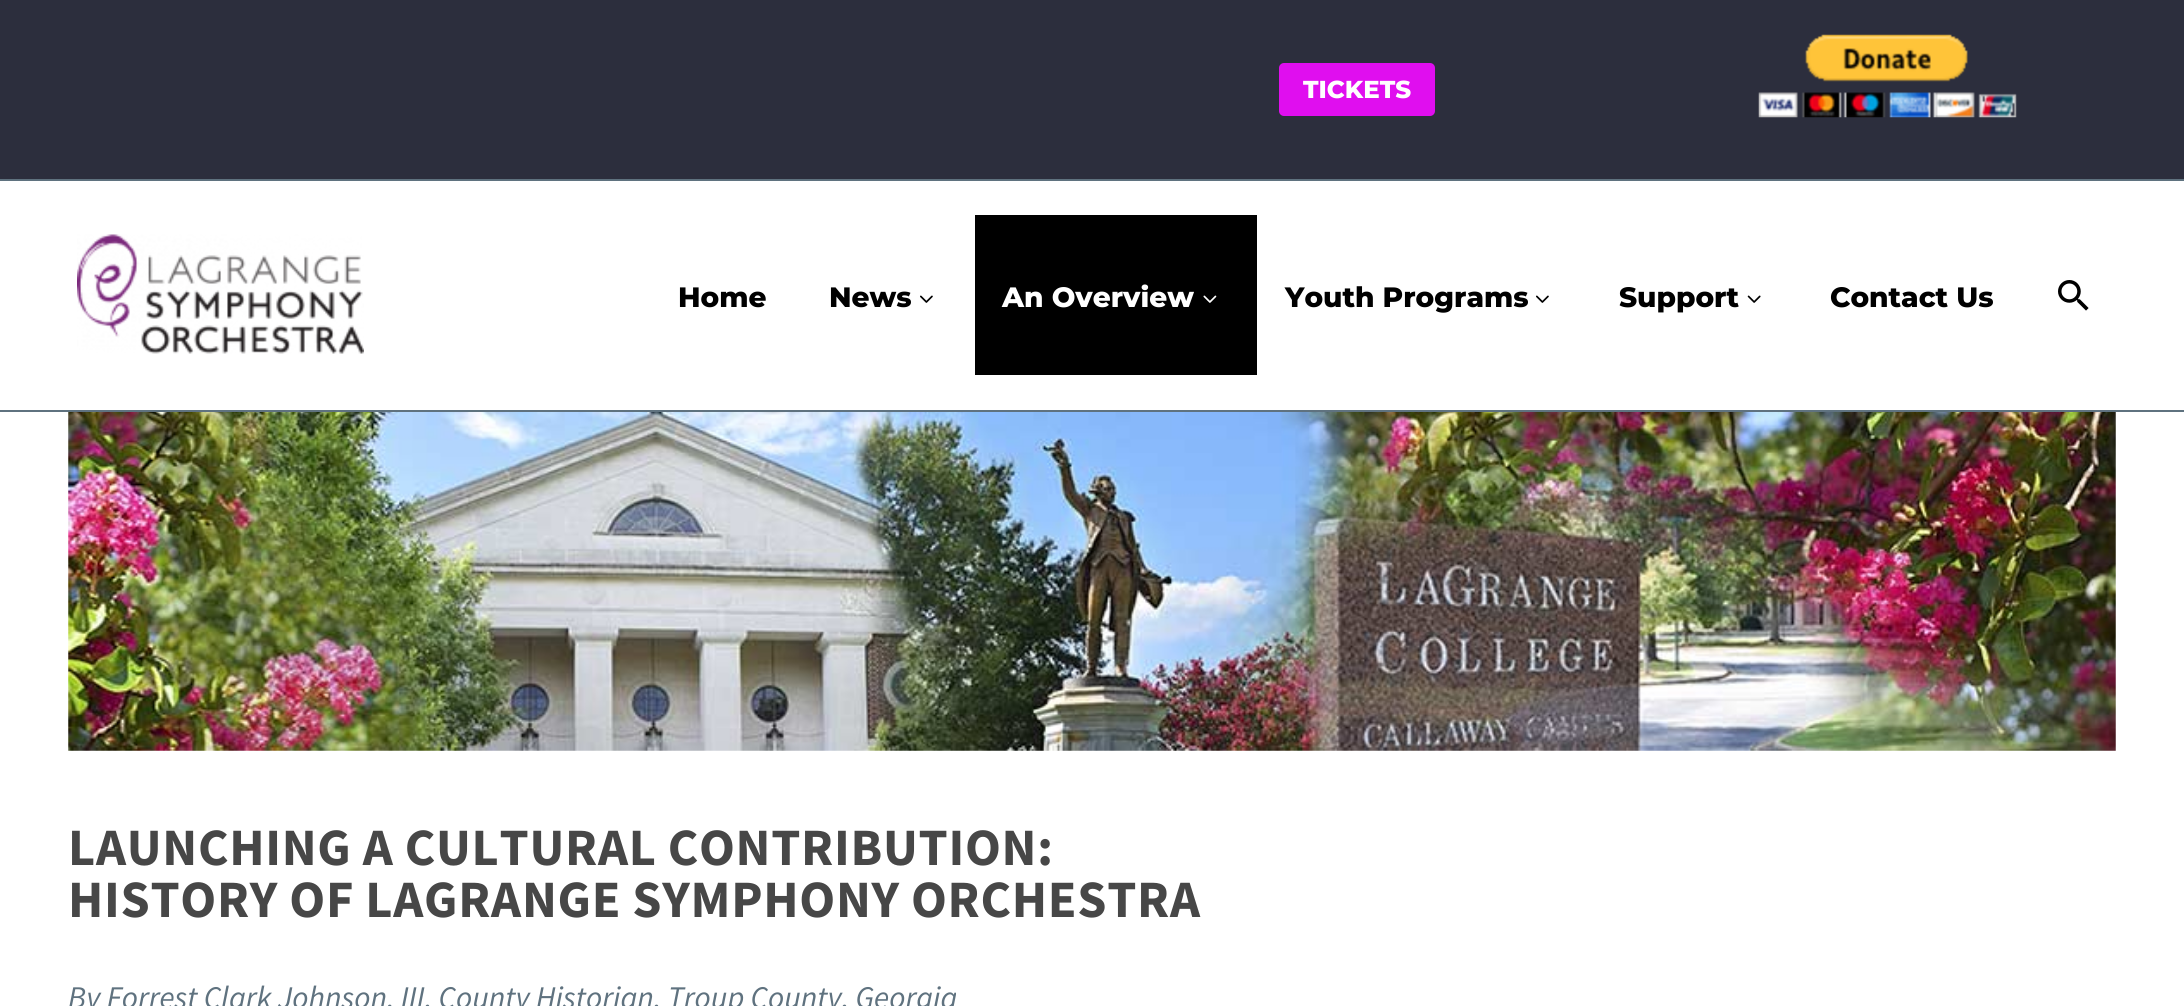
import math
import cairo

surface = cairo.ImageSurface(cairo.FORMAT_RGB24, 2184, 1006)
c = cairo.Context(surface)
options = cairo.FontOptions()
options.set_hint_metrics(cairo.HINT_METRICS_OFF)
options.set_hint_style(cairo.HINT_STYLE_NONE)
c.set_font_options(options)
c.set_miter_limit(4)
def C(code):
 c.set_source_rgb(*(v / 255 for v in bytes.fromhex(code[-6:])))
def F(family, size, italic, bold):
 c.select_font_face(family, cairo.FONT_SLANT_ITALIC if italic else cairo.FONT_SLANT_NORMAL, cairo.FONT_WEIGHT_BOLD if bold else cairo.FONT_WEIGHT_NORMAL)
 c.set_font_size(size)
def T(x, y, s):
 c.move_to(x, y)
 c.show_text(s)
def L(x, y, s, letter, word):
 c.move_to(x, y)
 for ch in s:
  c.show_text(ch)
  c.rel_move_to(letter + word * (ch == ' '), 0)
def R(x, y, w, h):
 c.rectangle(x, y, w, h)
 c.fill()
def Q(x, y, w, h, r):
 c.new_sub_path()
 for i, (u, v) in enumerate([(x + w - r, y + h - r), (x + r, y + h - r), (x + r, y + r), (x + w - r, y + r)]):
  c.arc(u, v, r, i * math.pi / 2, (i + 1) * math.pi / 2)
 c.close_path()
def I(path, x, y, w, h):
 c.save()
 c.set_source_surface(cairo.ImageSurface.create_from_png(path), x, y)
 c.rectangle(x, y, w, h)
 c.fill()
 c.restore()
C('ffffff')
c.paint()
C('2c2e3d')
R(0,0,2184,179)
C('e00eef')
Q(1279,63,156,53,5)
c.fill()
F('Montserrat ExtraBold',24.5,0,0)
C('ffffff')
T(1303,98,'TICKETS')
I('1.png',1758,34,259,84)
C('5f727f')
R(0,179,2184,2)
R(0,410,2184,2)
I('2.png',77,234,287,120)
F('Montserrat ExtraBold',28,0,0)
C('000000')
T(678,307,'Home')
T(829,307,'News')
I('3.png',920,295,13,8)
R(975,215,282,160)
C('ffffff')
T(1002,307,'An Overview')
I('4.png',1203,295,14,8)
C('000000')
T(1285,307,'Youth Programs')
I('3.png',1536,295,13,8)
T(1619,307,'Support')
I('5.png',1747,295,14,8)
T(1830,307,'Contact Us')
I('6.png',2058,280,31,31)
I('7.png',68,412,2048,339)
F('Source Sans Pro',52.5,0,1)
C('474747')
L(68,865,'LAUNCHING A CULTURAL CONTRIBUTION:',.7,0)
L(68,917,'HISTORY OF LAGRANGE SYMPHONY ORCHESTRA',.7,0)
F('Source Sans Pro',31.5,1,0)
C('5f727f')
T(68,1008,'By Forrest Clark Johnson, III, County Historian, Troup County, Georgia')
surface.write_to_png('o.png')
